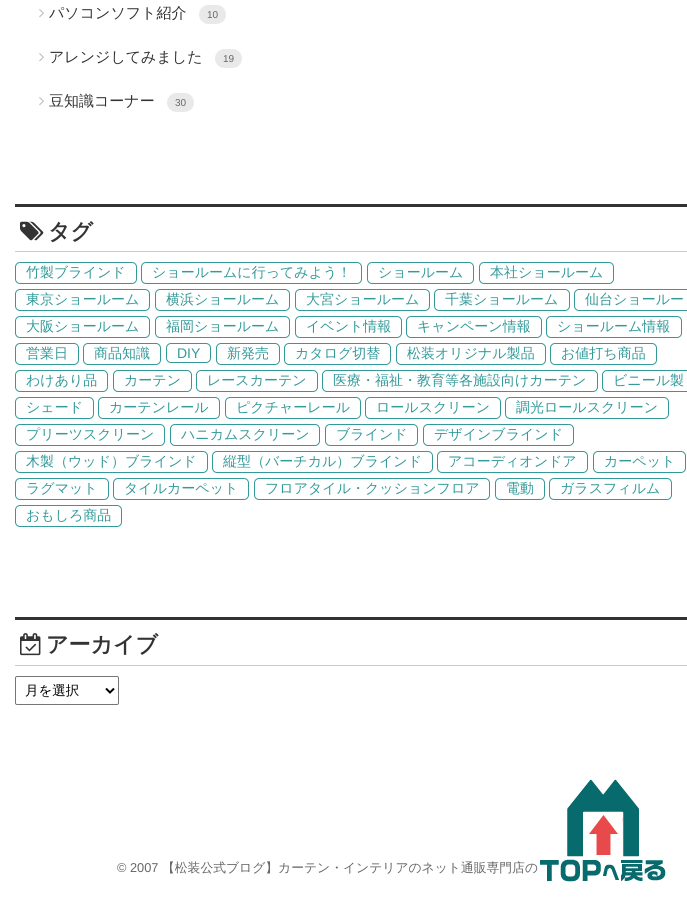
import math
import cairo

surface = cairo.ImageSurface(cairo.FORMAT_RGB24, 687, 902)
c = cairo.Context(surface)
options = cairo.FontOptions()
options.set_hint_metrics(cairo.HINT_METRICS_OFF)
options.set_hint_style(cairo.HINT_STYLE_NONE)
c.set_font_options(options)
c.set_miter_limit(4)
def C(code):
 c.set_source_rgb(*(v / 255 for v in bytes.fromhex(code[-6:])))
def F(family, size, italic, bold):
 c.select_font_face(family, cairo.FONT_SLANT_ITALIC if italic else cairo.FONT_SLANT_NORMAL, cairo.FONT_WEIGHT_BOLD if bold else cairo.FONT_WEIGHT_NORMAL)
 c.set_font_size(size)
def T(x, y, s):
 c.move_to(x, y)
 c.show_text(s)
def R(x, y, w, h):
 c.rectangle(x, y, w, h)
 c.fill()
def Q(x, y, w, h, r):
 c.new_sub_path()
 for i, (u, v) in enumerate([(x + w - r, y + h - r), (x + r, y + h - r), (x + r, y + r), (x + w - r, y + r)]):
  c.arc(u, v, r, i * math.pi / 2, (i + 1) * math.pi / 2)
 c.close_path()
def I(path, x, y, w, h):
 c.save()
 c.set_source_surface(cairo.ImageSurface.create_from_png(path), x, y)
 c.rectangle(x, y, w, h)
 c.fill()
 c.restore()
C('ffffff')
c.paint()
I('1.png',39,9,5,9)
F('WenQuanYi Zen Hei Medium',15,0,0)
C('333333')
T(49,18,'パソコンソフト紹介')
C('e9e9e9')
Q(199,5,27,19,9.5)
c.fill()
F('Liberation Sans',10,0,0)
C('666666')
T(207,18,'10')
I('1.png',39,53,5,9)
F('WenQuanYi Zen Hei Medium',15,0,0)
C('333333')
T(49,62,'アレンジしてみました')
C('e9e9e9')
Q(215,49,27,19,9.5)
c.fill()
F('Liberation Sans',10,0,0)
C('666666')
T(223,62,'19')
I('1.png',39,97,5,9)
F('WenQuanYi Zen Hei Medium',15,0,0)
C('333333')
T(49,106,'豆知識コーナー')
C('e9e9e9')
Q(167,93,27,19,9.5)
c.fill()
F('Liberation Sans',10,0,0)
C('666666')
T(175,106,'30')
C('333333')
R(15,204,672,3)
C('cccccc')
R(15,251,672,1)
I('2.png',20,221,24,20)
F('WenQuanYi Zen Hei',22,0,1)
C('333333')
T(48,239,'タグ')
Q(15.5,262.5,121,21,4.5)
C('339999')
c.set_line_width(1)
c.stroke()
F('WenQuanYi Zen Hei Medium',14,0,0)
T(26,277,'竹製ブラインド')
Q(141.5,262.5,220,21,4.5)
c.stroke()
T(152,277,'ショールームに行ってみよう！')
Q(367.5,262.5,106,21,4.5)
c.stroke()
T(378,277,'ショールーム')
Q(479.5,262.5,134,21,4.5)
c.stroke()
T(490,277,'本社ショールーム')
Q(15.5,289.5,134,21,4.5)
c.stroke()
T(26,304,'東京ショールーム')
Q(155.5,289.5,134,21,4.5)
c.stroke()
T(166,304,'横浜ショールーム')
Q(295.5,289.5,134,21,4.5)
c.stroke()
T(306,304,'大宮ショールーム')
Q(434.5,289.5,135,21,4.5)
c.stroke()
T(445,304,'千葉ショールーム')
Q(574.5,289.5,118,21,4.5)
c.stroke()
T(585,304,'仙台ショールー')
Q(15.5,316.5,134,21,4.5)
c.stroke()
T(26,331,'大阪ショールーム')
Q(155.5,316.5,134,21,4.5)
c.stroke()
T(166,331,'福岡ショールーム')
Q(295.5,316.5,106,21,4.5)
c.stroke()
T(306,331,'イベント情報')
Q(406.5,316.5,135,21,4.5)
c.stroke()
T(417,331,'キャンペーン情報')
Q(546.5,316.5,135,21,4.5)
c.stroke()
T(557,331,'ショールーム情報')
Q(15.5,343.5,63,21,4.5)
c.stroke()
T(26,358,'営業日')
Q(83.5,343.5,77,21,4.5)
c.stroke()
T(94,358,'商品知識')
Q(166.5,343.5,44,19,4.5)
c.stroke()
F('Liberation Sans',14,0,0)
T(177,358,'DIY')
Q(216.5,343.5,63,21,4.5)
c.stroke()
F('WenQuanYi Zen Hei Medium',14,0,0)
T(227,358,'新発売')
Q(284.5,343.5,106,21,4.5)
c.stroke()
T(295,358,'カタログ切替')
Q(396.5,343.5,149,21,4.5)
c.stroke()
T(407,358,'松装オリジナル製品')
Q(550.5,343.5,106,21,4.5)
c.stroke()
T(561,358,'お値打ち商品')
Q(15.5,370.5,92,21,4.5)
c.stroke()
T(26,385,'わけあり品')
Q(113.5,370.5,78,21,4.5)
c.stroke()
T(124,385,'カーテン')
Q(196.5,370.5,121,21,4.5)
c.stroke()
T(207,385,'レースカーテン')
Q(322.5,370.5,275,21,4.5)
c.stroke()
T(333,385,'医療・福祉・教育等各施設向けカーテン')
Q(602.5,370.5,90,21,4.5)
c.stroke()
T(613,385,'ビニール製')
Q(15.5,397.5,78,21,4.5)
c.stroke()
T(26,412,'シェード')
Q(98.5,397.5,121,21,4.5)
c.stroke()
T(109,412,'カーテンレール')
Q(225.5,397.5,135,21,4.5)
c.stroke()
T(236,412,'ピクチャーレール')
Q(365.5,397.5,135,21,4.5)
c.stroke()
T(376,412,'ロールスクリーン')
Q(505.5,397.5,163,21,4.5)
c.stroke()
T(516,412,'調光ロールスクリーン')
Q(15.5,424.5,149,21,4.5)
c.stroke()
T(26,439,'プリーツスクリーン')
Q(170.5,424.5,149,21,4.5)
c.stroke()
T(181,439,'ハニカムスクリーン')
Q(325.5,424.5,92,21,4.5)
c.stroke()
T(336,439,'ブラインド')
Q(423.5,424.5,150,21,4.5)
c.stroke()
T(434,439,'デザインブラインド')
Q(15.5,451.5,192,21,4.5)
c.stroke()
T(26,466,'木製（ウッド）ブラインド')
Q(212.5,451.5,220,21,4.5)
c.stroke()
T(223,466,'縦型（バーチカル）ブラインド')
Q(437.5,451.5,150,21,4.5)
c.stroke()
T(448,466,'アコーディオンドア')
Q(593.5,451.5,92,21,4.5)
c.stroke()
T(604,466,'カーペット')
Q(15.5,478.5,93,21,4.5)
c.stroke()
T(26,493,'ラグマット')
Q(113.5,478.5,135,21,4.5)
c.stroke()
T(124,493,'タイルカーペット')
Q(254.5,478.5,235,21,4.5)
c.stroke()
T(265,493,'フロアタイル・クッションフロア')
Q(495.5,478.5,49,21,4.5)
c.stroke()
T(506,493,'電動')
Q(549.5,478.5,122,21,4.5)
c.stroke()
T(560,493,'ガラスフィルム')
Q(15.5,505.5,106,21,4.5)
c.stroke()
T(26,520,'おもしろ商品')
C('333333')
R(15,617,672,3)
C('cccccc')
R(15,665,672,1)
I('3.png',20,633,21,23)
F('WenQuanYi Zen Hei',22,0,1)
C('333333')
T(46,652,'アーカイブ')
Q(15.5,676.5,103,28,1.5)
C('767676')
c.stroke()
c.new_path()
c.move_to(106,688.5)
c.line_to(110,692.5)
c.line_to(114,688.5)
C('000000')
c.set_line_width(2)
c.stroke()
F('WenQuanYi Zen Hei Medium',13.5,0,0)
T(25,695,'月を選択')
F('Liberation Sans',12.8,0,0)
C('666666')
T(117,872,'© 2007')
F('WenQuanYi Zen Hei Medium',12.8,0,0)
T(162,872,'【松装公式ブログ】カーテン・インテリアのネット通販専門店の')
I('4.png',540,779,126,103)
surface.write_to_png('o.png')
